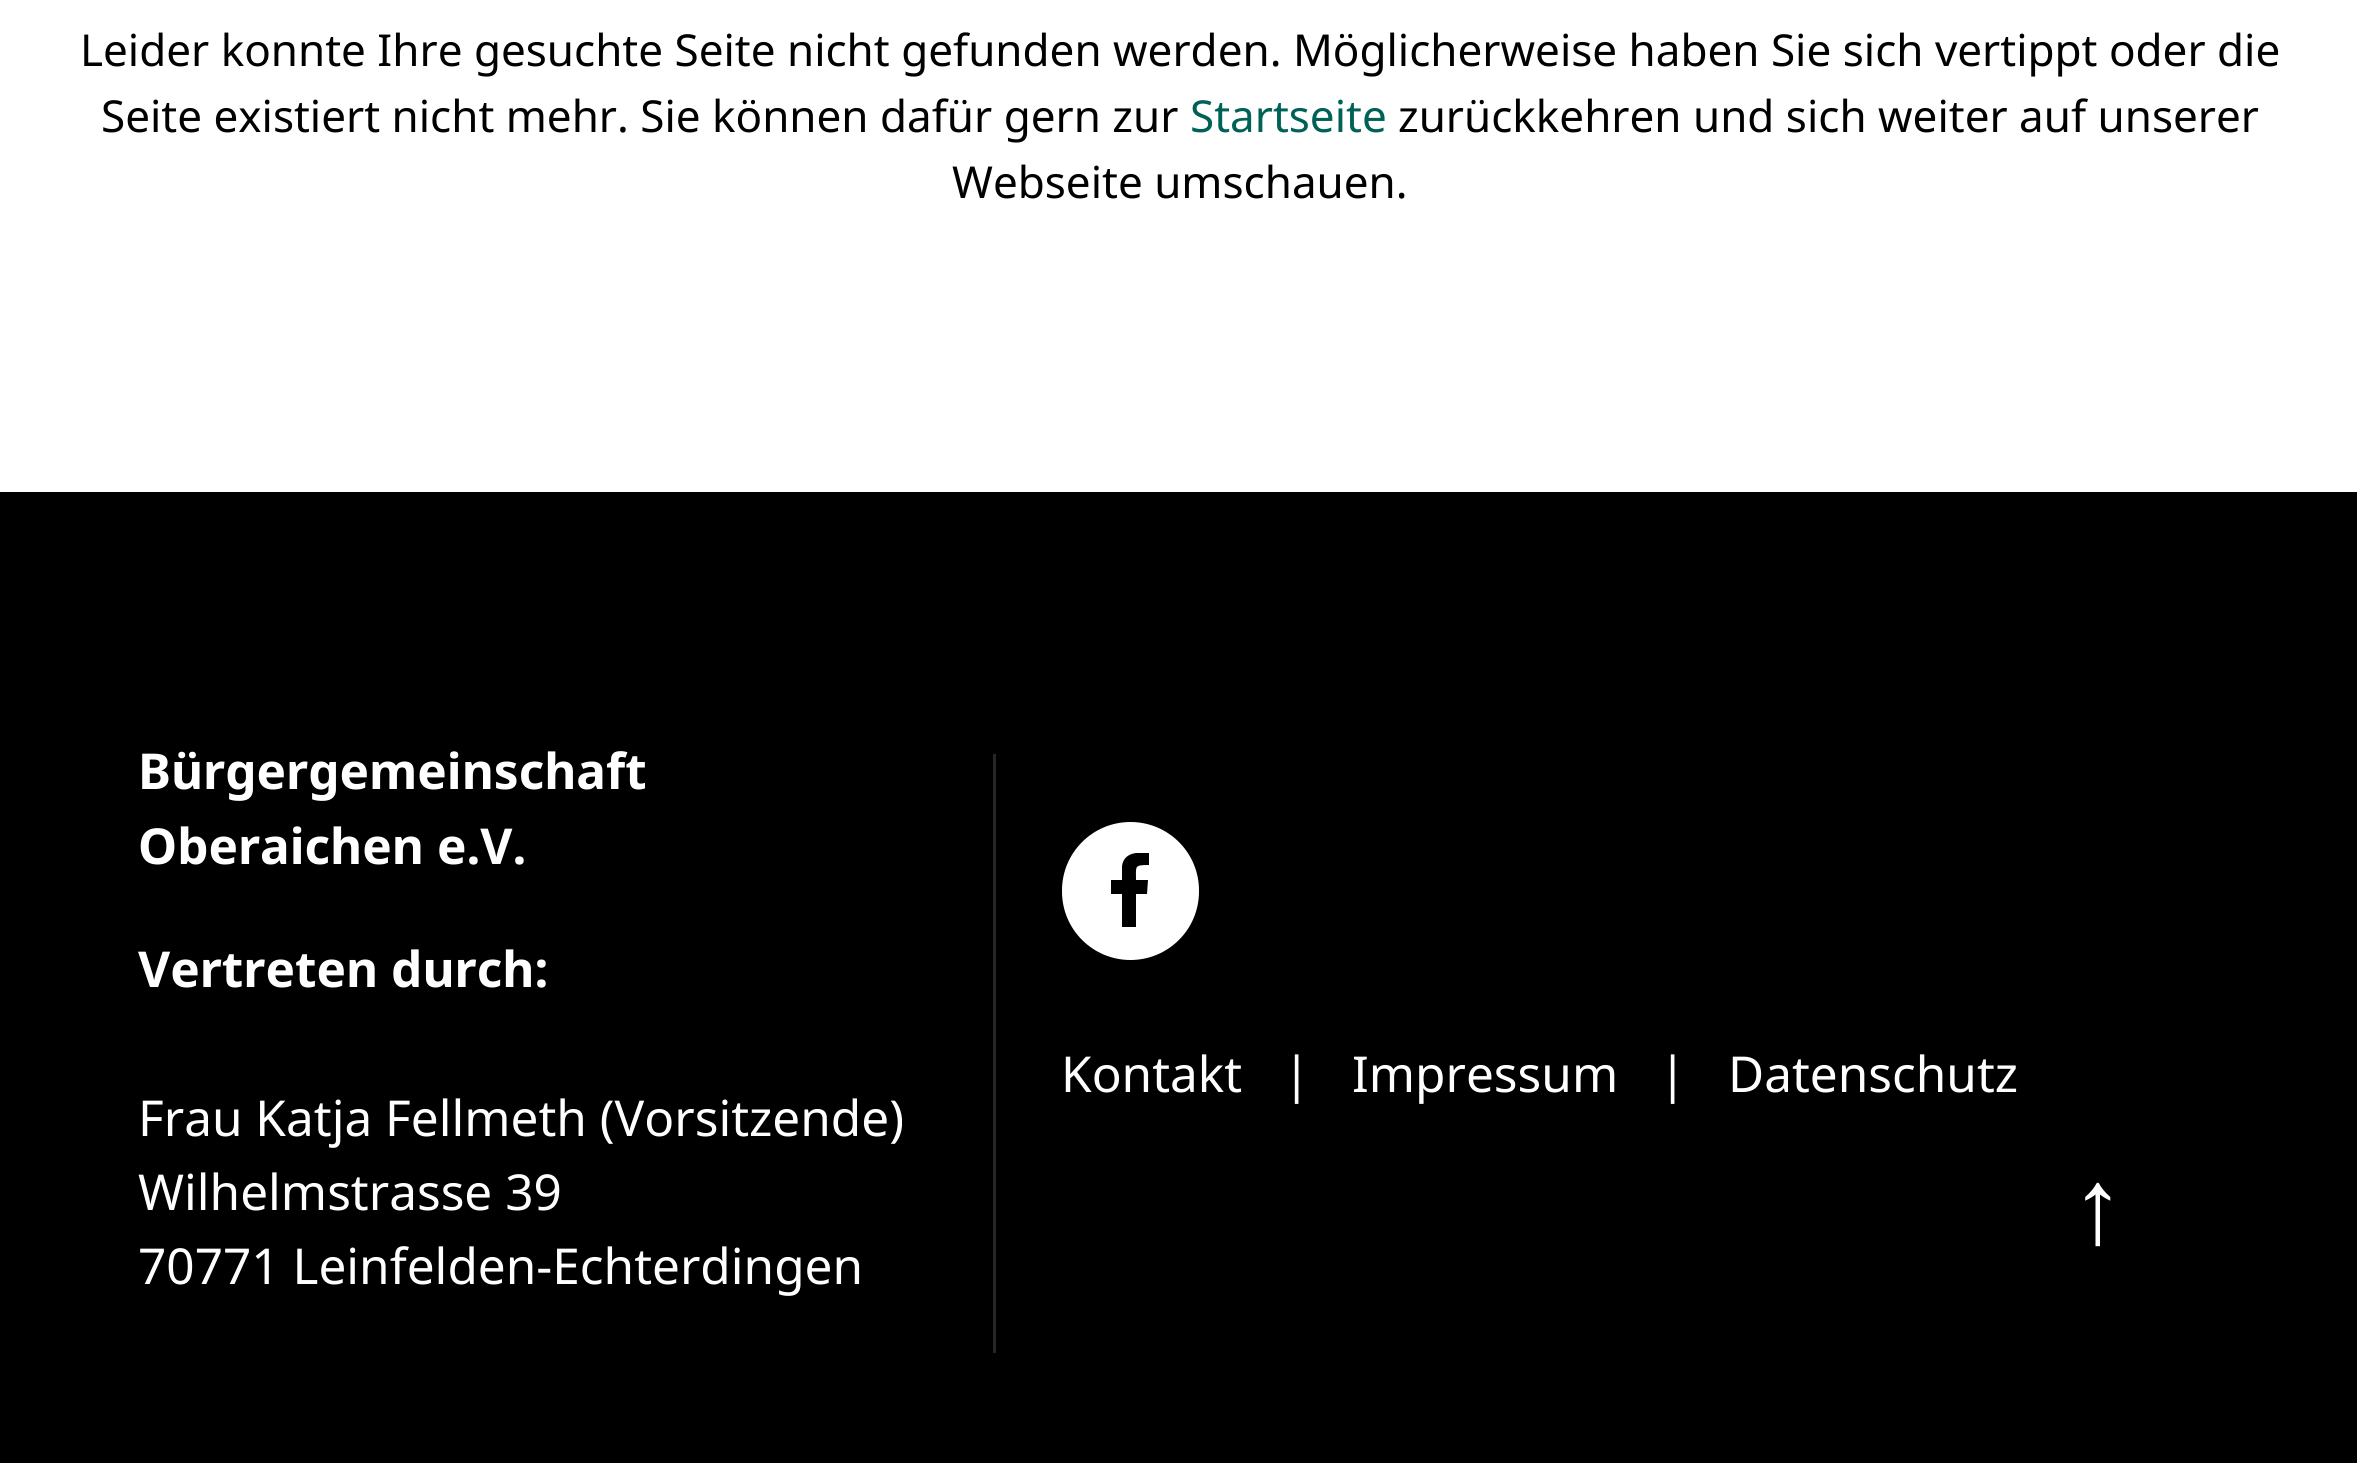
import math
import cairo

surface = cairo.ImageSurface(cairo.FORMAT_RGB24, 2357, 1463)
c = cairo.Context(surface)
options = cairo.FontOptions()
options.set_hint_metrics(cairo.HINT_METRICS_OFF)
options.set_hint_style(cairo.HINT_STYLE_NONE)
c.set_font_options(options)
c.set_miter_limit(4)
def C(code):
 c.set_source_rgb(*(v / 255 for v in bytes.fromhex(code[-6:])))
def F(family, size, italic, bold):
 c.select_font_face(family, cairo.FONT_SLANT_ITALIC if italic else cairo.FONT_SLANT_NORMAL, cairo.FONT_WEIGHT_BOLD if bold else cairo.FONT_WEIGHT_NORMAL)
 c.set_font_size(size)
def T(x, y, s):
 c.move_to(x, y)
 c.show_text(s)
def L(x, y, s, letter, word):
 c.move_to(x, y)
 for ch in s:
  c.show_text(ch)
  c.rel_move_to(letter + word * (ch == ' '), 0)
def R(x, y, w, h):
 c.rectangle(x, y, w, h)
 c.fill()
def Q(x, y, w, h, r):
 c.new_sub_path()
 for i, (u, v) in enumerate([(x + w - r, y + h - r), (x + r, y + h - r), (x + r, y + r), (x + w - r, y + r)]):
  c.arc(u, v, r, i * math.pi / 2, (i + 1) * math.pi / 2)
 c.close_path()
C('ffffff')
c.paint()
F('Noto Sans',44,0,0)
C('000000')
T(80,66,'Leider konnte Ihre gesuchte Seite nicht gefunden werden. Möglicherweise haben Sie sich vertippt oder die')
T(101,132,'Seite existiert nicht mehr. Sie können dafür gern zur')
C('006156')
T(1190,132,'Startseite')
C('000000')
T(1398,132,'zurückkehren und sich weiter auf unserer')
T(952,198,'Webseite umschauen.')
R(0,492,2357,971)
F('Noto Sans',49.5,0,1)
C('ffffff')
T(138,789,'Bürgergemeinschaft')
T(138,864,'Oberaichen e.V.')
T(138,987,'Vertreten durch:')
F('Noto Sans',49.5,0,0)
T(138,1136,'Frau Katja Fellmeth (Vorsitzende)')
T(138,1210,'Wilhelmstrasse 39')
T(138,1284,'70771 Leinfelden-Echterdingen')
C('262626')
R(993,754,3,599)
C('ffffff')
Q(1062,822,137,138,68.5)
c.fill()
c.save()
c.rectangle(1111,853,39,77)
c.clip()
C('000000')
c.new_path()
c.move_to(1122,894)
c.line_to(1111,894)
c.line_to(1111,880)
c.line_to(1122,880)
c.line_to(1122,866)
c.curve_to(1124,852,1138,852,1149,853)
c.line_to(1149,865)
c.curve_to(1134,865,1136,866,1136,880)
c.line_to(1148,880)
c.line_to(1147,894)
c.line_to(1136,894)
c.line_to(1136,927)
c.line_to(1122,927)
c.close_path()
c.fill()
c.restore()
T(1061,1092,'Kontakt')
T(1283,1092,'|')
T(1352,1092,'Impressum')
T(1659,1092,'|')
T(1728,1092,'Datenschutz')
F('Liberation Sans',107,0,1)
L(2071,1243,'↑',1,0)
surface.write_to_png('o.png')
